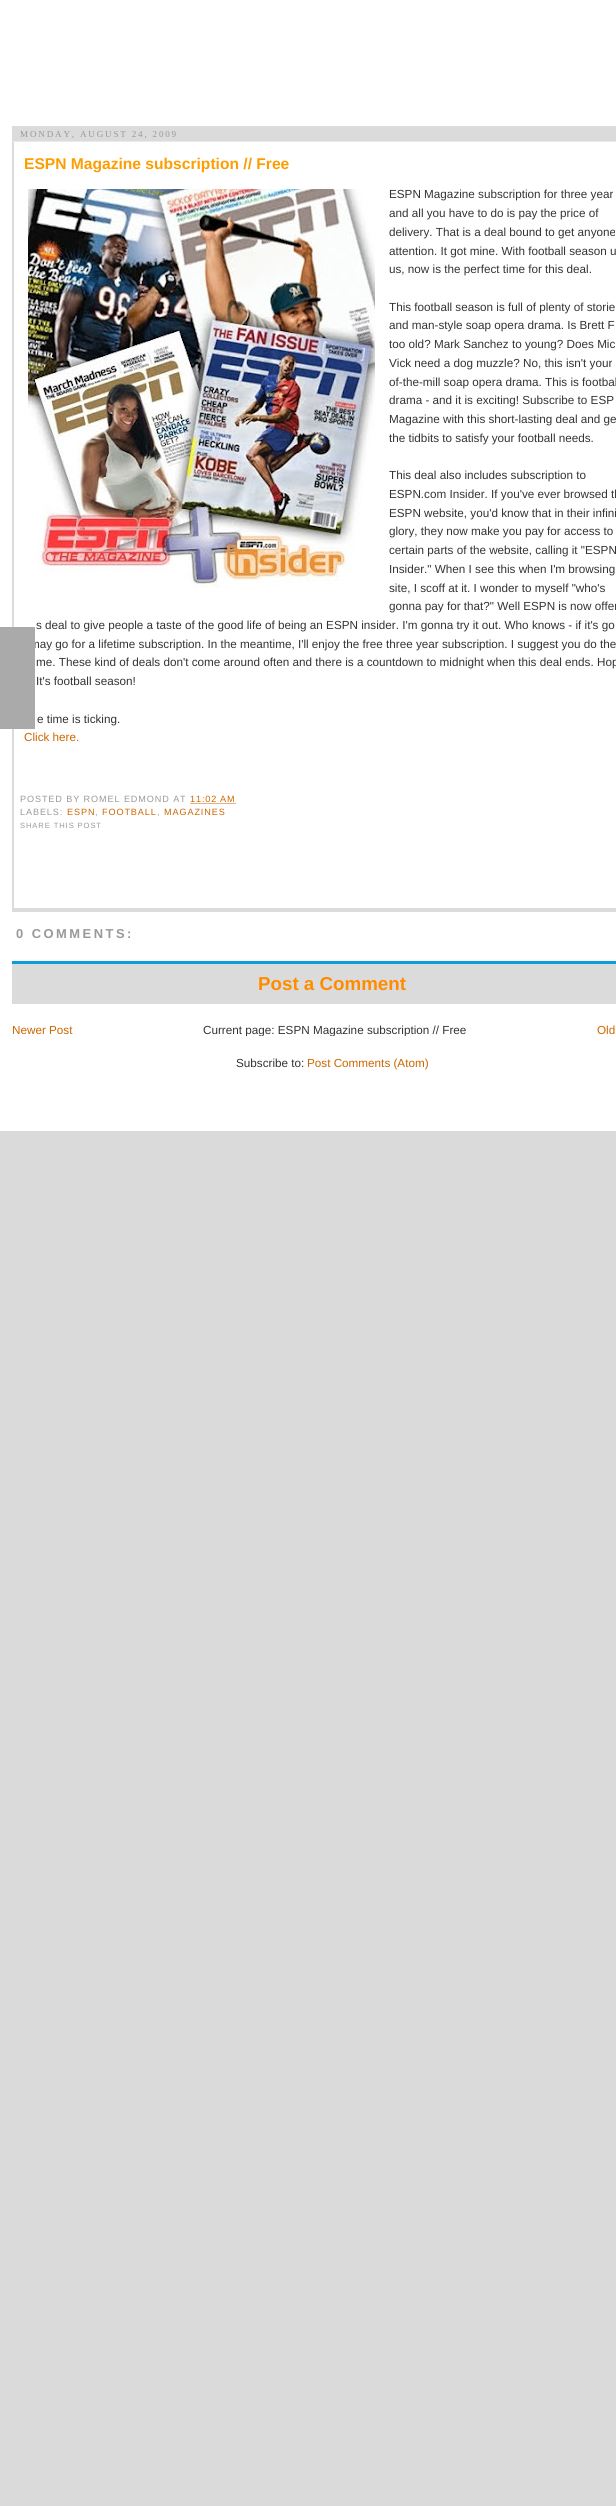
import math
import cairo

surface = cairo.ImageSurface(cairo.FORMAT_RGB24, 616, 2506)
c = cairo.Context(surface)
options = cairo.FontOptions()
options.set_hint_metrics(cairo.HINT_METRICS_OFF)
options.set_hint_style(cairo.HINT_STYLE_NONE)
c.set_font_options(options)
c.set_miter_limit(4)
def C(code):
 c.set_source_rgb(*(v / 255 for v in bytes.fromhex(code[-6:])))
def F(family, size, italic, bold):
 c.select_font_face(family, cairo.FONT_SLANT_ITALIC if italic else cairo.FONT_SLANT_NORMAL, cairo.FONT_WEIGHT_BOLD if bold else cairo.FONT_WEIGHT_NORMAL)
 c.set_font_size(size)
def T(x, y, s):
 c.move_to(x, y)
 c.show_text(s)
def L(x, y, s, letter, word):
 c.move_to(x, y)
 for ch in s:
  c.show_text(ch)
  c.rel_move_to(letter + word * (ch == ' '), 0)
def R(x, y, w, h):
 c.rectangle(x, y, w, h)
 c.fill()
def I(path, x, y, w, h):
 c.save()
 c.set_source_surface(cairo.ImageSurface.create_from_png(path), x, y)
 c.rectangle(x, y, w, h)
 c.fill()
 c.restore()
C('dadada')
c.paint()
C('ffffff')
R(0,0,616,1131)
C('dbdbdb')
R(12,126,604,15)
F('Liberation Serif',9.1,0,0)
C('999999')
L(20,137,'MONDAY, AUGUST 24, 2009',1.8,0)
C('eaeaea')
c.new_path()
c.move_to(12,141)
c.line_to(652,141)
c.line_to(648,142)
c.line_to(14,142)
c.close_path()
c.fill()
C('dbdbdb')
R(12,908,604,4)
c.new_path()
c.move_to(12,912)
c.line_to(12,141)
c.line_to(14,142)
c.line_to(14,908)
c.close_path()
c.fill()
F('Liberation Sans',15.6,0,1)
C('fe9d00')
T(24,169,'ESPN Magazine subscription // Free')
I('1.png',28,189,347,399)
F('Liberation Sans',11.7,0,0)
C('333333')
T(389,198,'ESPN Magazine subscription for three year')
T(389,217,'and all you have to do is pay the price of')
T(389,236,'delivery. That is a deal bound to get anyone')
T(389,255,'attention. It got mine. With football season u')
T(389,273,'us, now is the perfect time for this deal.')
T(389,311,'This football season is full of plenty of storie')
T(389,329,'and man-style soap opera drama. Is Brett F')
T(389,348,'too old? Mark Sanchez to young? Does Mic')
T(389,367,'Vick need a dog muzzle? No, this isn\'t your')
T(389,386,'of-the-mill soap opera drama. This is footbal')
T(389,404,'drama - and it is exciting! Subscribe to ESP')
T(389,423,'Magazine with this short-lasting deal and ge')
T(389,442,'the tidbits to satisfy your football needs.')
T(389,479,'This deal also includes subscription to')
T(389,498,'ESPN.com Insider. If you\'ve ever browsed th')
T(389,517,'ESPN website, you\'d know that in their infini')
T(389,535,'glory, they now make you pay for access to')
T(389,554,'certain parts of the website, calling it "ESPN')
T(389,573,'Insider." When I see this when I\'m browsing')
T(389,592,'site, I scoff at it. I wonder to myself "who\'s')
T(389,610,'gonna pay for that?" Well ESPN is now offer')
T(36,629,'s deal to give people a taste of the good life of being an ESPN insider. I\'m gonna try it out. Who knows - if it\'s go')
T(30,648,'may go for a lifetime subscription. In the meantime, I\'ll enjoy the free three year subscription. I suggest you do the')
T(36,666,'me. These kind of deals don\'t come around often and there is a countdown to midnight when this deal ends. Hop')
T(36,685,'It\'s football season!')
T(37,723,'e time is ticking.')
C('cc6600')
T(24,741,'Click here.')
F('Liberation Sans',9.1,0,0)
C('999999')
L(20,802,'POSTED BY ROMEL EDMOND AT',.9,0)
C('cc6600')
L(190,802,'11:02 AM',.9,0)
c.new_path()
c.move_to(190.5,803.5)
c.line_to(236,803.5)
c.set_line_width(1)
c.set_dash([1,1])
c.stroke()
C('999999')
L(20,815,'LABELS:',.9,0)
C('cc6600')
L(67,815,'ESPN',.9,0)
C('999999')
L(95,815,',',.9,0)
C('cc6600')
L(102,815,'FOOTBALL',.9,0)
C('999999')
L(157,815,',',.9,0)
C('cc6600')
L(164,815,'MAGAZINES',.9,0)
F('Liberation Sans',7.6,0,0)
C('999999')
L(20,828,'SHARE THIS POST',.9,0)
F('Liberation Sans',12.9,0,1)
L(16,938,'0 COMMENTS:',2.5,0)
C('dbdbdb')
R(12,964,604,40)
C('099dd9')
R(12,961,604,3)
F('Liberation Sans',18.75,0,1)
C('ff8c00')
T(258,990,'Post a Comment')
F('Liberation Sans',11.7,0,0)
C('cc6600')
T(12,1034,'Newer Post')
c.save()
c.rectangle(12,1023,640,13)
c.clip()
C('333333')
T(203,1034,'Current page: ESPN Magazine subscription // Free')
c.restore()
T(597,1034,'Old')
C('333333')
T(236,1067,'Subscribe to:')
C('cc6600')
T(307,1067,'Post Comments (Atom)')
C('aaaaaa')
R(0,627,35,102)
surface.write_to_png('o.png')
